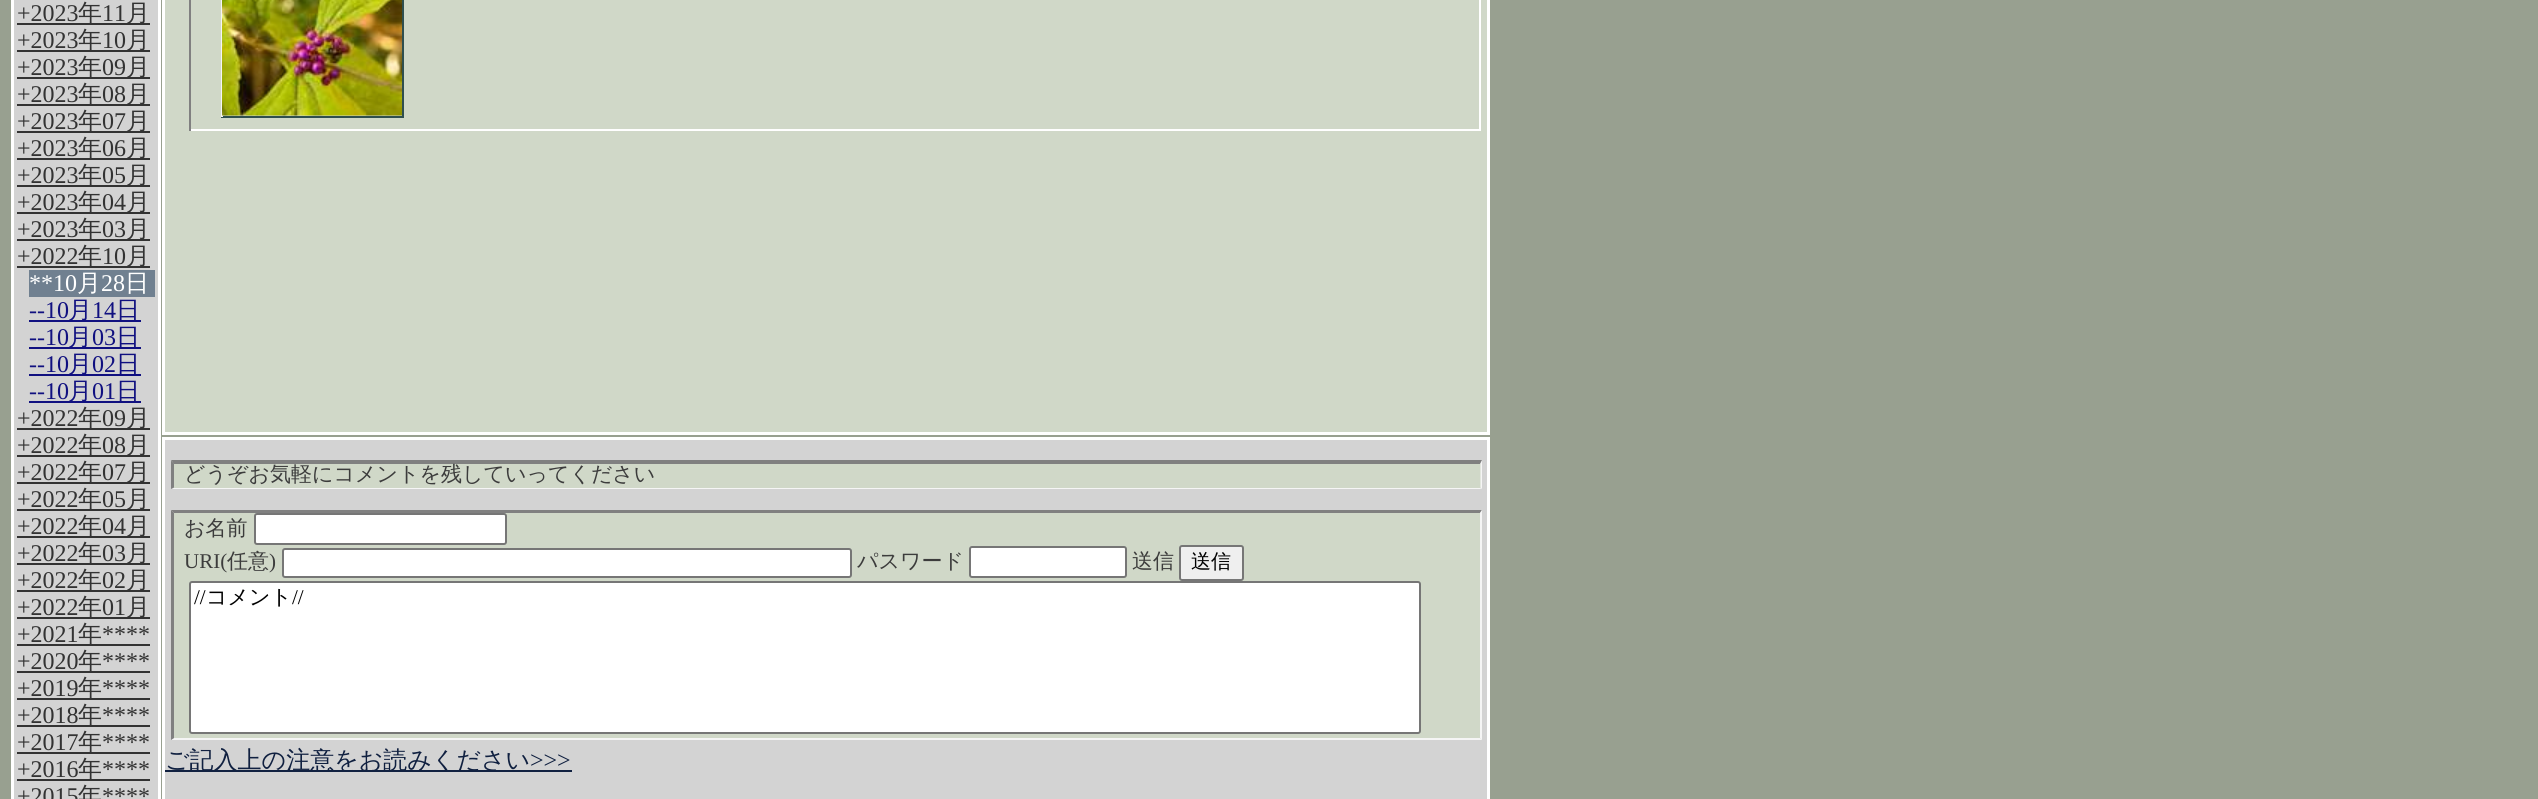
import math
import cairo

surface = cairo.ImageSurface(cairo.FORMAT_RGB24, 2538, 799)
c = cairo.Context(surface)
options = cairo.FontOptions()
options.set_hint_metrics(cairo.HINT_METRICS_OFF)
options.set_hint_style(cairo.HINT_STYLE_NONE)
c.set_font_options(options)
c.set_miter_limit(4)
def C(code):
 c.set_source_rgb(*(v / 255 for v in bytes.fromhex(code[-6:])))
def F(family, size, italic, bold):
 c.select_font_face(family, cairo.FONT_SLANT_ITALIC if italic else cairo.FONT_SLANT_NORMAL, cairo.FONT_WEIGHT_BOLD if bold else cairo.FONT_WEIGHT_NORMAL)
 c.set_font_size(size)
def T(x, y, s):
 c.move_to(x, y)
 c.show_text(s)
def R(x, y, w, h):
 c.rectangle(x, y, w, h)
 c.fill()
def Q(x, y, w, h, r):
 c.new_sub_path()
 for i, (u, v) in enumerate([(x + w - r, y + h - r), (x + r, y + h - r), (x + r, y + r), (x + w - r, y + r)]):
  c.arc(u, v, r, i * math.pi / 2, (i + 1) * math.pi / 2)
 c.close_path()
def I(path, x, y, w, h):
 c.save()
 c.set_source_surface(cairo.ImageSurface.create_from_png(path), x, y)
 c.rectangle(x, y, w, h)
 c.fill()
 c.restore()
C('98a090')
c.paint()
C('d3d3d3')
c.rectangle(12.5,-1.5,147,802)
c.fill_preserve()
C('ffffff')
c.set_line_width(3)
c.stroke()
F('Liberation Serif',24,0,0)
C('333333')
T(17,21,'+2023')
R(17,23,133,2)
F('WenQuanYi Zen Hei Medium',24,0,0)
T(78,21,'年')
F('Liberation Serif',24,0,0)
T(102,21,'11')
F('WenQuanYi Zen Hei Medium',24,0,0)
T(126,21,'月')
F('Liberation Serif',24,0,0)
T(17,48,'+2023')
R(17,50,133,2)
F('WenQuanYi Zen Hei Medium',24,0,0)
T(78,48,'年')
F('Liberation Serif',24,0,0)
T(102,48,'10')
F('WenQuanYi Zen Hei Medium',24,0,0)
T(126,48,'月')
F('Liberation Serif',24,0,0)
T(17,75,'+2023')
R(17,77,133,2)
F('WenQuanYi Zen Hei Medium',24,0,0)
T(78,75,'年')
F('Liberation Serif',24,0,0)
T(102,75,'09')
F('WenQuanYi Zen Hei Medium',24,0,0)
T(126,75,'月')
F('Liberation Serif',24,0,0)
T(17,102,'+2023')
R(17,104,133,2)
F('WenQuanYi Zen Hei Medium',24,0,0)
T(78,102,'年')
F('Liberation Serif',24,0,0)
T(102,102,'08')
F('WenQuanYi Zen Hei Medium',24,0,0)
T(126,102,'月')
F('Liberation Serif',24,0,0)
T(17,129,'+2023')
R(17,131,133,2)
F('WenQuanYi Zen Hei Medium',24,0,0)
T(78,129,'年')
F('Liberation Serif',24,0,0)
T(102,129,'07')
F('WenQuanYi Zen Hei Medium',24,0,0)
T(126,129,'月')
F('Liberation Serif',24,0,0)
T(17,156,'+2023')
R(17,158,133,2)
F('WenQuanYi Zen Hei Medium',24,0,0)
T(78,156,'年')
F('Liberation Serif',24,0,0)
T(102,156,'06')
F('WenQuanYi Zen Hei Medium',24,0,0)
T(126,156,'月')
F('Liberation Serif',24,0,0)
T(17,183,'+2023')
R(17,185,133,2)
F('WenQuanYi Zen Hei Medium',24,0,0)
T(78,183,'年')
F('Liberation Serif',24,0,0)
T(102,183,'05')
F('WenQuanYi Zen Hei Medium',24,0,0)
T(126,183,'月')
F('Liberation Serif',24,0,0)
T(17,210,'+2023')
R(17,212,133,2)
F('WenQuanYi Zen Hei Medium',24,0,0)
T(78,210,'年')
F('Liberation Serif',24,0,0)
T(102,210,'04')
F('WenQuanYi Zen Hei Medium',24,0,0)
T(126,210,'月')
F('Liberation Serif',24,0,0)
T(17,237,'+2023')
R(17,239,133,2)
F('WenQuanYi Zen Hei Medium',24,0,0)
T(78,237,'年')
F('Liberation Serif',24,0,0)
T(102,237,'03')
F('WenQuanYi Zen Hei Medium',24,0,0)
T(126,237,'月')
F('Liberation Serif',24,0,0)
T(17,264,'+2022')
R(17,266,133,2)
F('WenQuanYi Zen Hei Medium',24,0,0)
T(78,264,'年')
F('Liberation Serif',24,0,0)
T(102,264,'10')
F('WenQuanYi Zen Hei Medium',24,0,0)
T(126,264,'月')
C('708090')
R(29,270,126,27)
F('Liberation Serif',24,0,0)
C('ffffff')
T(29,291,'**10')
F('WenQuanYi Zen Hei Medium',24,0,0)
T(77,291,'月')
F('Liberation Serif',24,0,0)
T(101,291,'28')
F('WenQuanYi Zen Hei Medium',24,0,0)
T(125,291,'日')
F('Liberation Serif',24,0,0)
C('101080')
T(29,318,'--10')
R(29,320,112,2)
F('WenQuanYi Zen Hei Medium',24,0,0)
T(68,318,'月')
F('Liberation Serif',24,0,0)
T(92,318,'14')
F('WenQuanYi Zen Hei Medium',24,0,0)
T(116,318,'日')
F('Liberation Serif',24,0,0)
T(29,345,'--10')
R(29,347,112,2)
F('WenQuanYi Zen Hei Medium',24,0,0)
T(68,345,'月')
F('Liberation Serif',24,0,0)
T(92,345,'03')
F('WenQuanYi Zen Hei Medium',24,0,0)
T(116,345,'日')
F('Liberation Serif',24,0,0)
T(29,372,'--10')
R(29,374,112,2)
F('WenQuanYi Zen Hei Medium',24,0,0)
T(68,372,'月')
F('Liberation Serif',24,0,0)
T(92,372,'02')
F('WenQuanYi Zen Hei Medium',24,0,0)
T(116,372,'日')
F('Liberation Serif',24,0,0)
T(29,399,'--10')
R(29,401,112,2)
F('WenQuanYi Zen Hei Medium',24,0,0)
T(68,399,'月')
F('Liberation Serif',24,0,0)
T(92,399,'01')
F('WenQuanYi Zen Hei Medium',24,0,0)
T(116,399,'日')
F('Liberation Serif',24,0,0)
C('333333')
T(17,426,'+2022')
R(17,428,133,2)
F('WenQuanYi Zen Hei Medium',24,0,0)
T(78,426,'年')
F('Liberation Serif',24,0,0)
T(102,426,'09')
F('WenQuanYi Zen Hei Medium',24,0,0)
T(126,426,'月')
F('Liberation Serif',24,0,0)
T(17,453,'+2022')
R(17,455,133,2)
F('WenQuanYi Zen Hei Medium',24,0,0)
T(78,453,'年')
F('Liberation Serif',24,0,0)
T(102,453,'08')
F('WenQuanYi Zen Hei Medium',24,0,0)
T(126,453,'月')
F('Liberation Serif',24,0,0)
T(17,480,'+2022')
R(17,482,133,2)
F('WenQuanYi Zen Hei Medium',24,0,0)
T(78,480,'年')
F('Liberation Serif',24,0,0)
T(102,480,'07')
F('WenQuanYi Zen Hei Medium',24,0,0)
T(126,480,'月')
F('Liberation Serif',24,0,0)
T(17,507,'+2022')
R(17,509,133,2)
F('WenQuanYi Zen Hei Medium',24,0,0)
T(78,507,'年')
F('Liberation Serif',24,0,0)
T(102,507,'05')
F('WenQuanYi Zen Hei Medium',24,0,0)
T(126,507,'月')
F('Liberation Serif',24,0,0)
T(17,534,'+2022')
R(17,536,133,2)
F('WenQuanYi Zen Hei Medium',24,0,0)
T(78,534,'年')
F('Liberation Serif',24,0,0)
T(102,534,'04')
F('WenQuanYi Zen Hei Medium',24,0,0)
T(126,534,'月')
F('Liberation Serif',24,0,0)
T(17,561,'+2022')
R(17,563,133,2)
F('WenQuanYi Zen Hei Medium',24,0,0)
T(78,561,'年')
F('Liberation Serif',24,0,0)
T(102,561,'03')
F('WenQuanYi Zen Hei Medium',24,0,0)
T(126,561,'月')
F('Liberation Serif',24,0,0)
T(17,588,'+2022')
R(17,590,133,2)
F('WenQuanYi Zen Hei Medium',24,0,0)
T(78,588,'年')
F('Liberation Serif',24,0,0)
T(102,588,'02')
F('WenQuanYi Zen Hei Medium',24,0,0)
T(126,588,'月')
F('Liberation Serif',24,0,0)
T(17,615,'+2022')
R(17,617,133,2)
F('WenQuanYi Zen Hei Medium',24,0,0)
T(78,615,'年')
F('Liberation Serif',24,0,0)
T(102,615,'01')
F('WenQuanYi Zen Hei Medium',24,0,0)
T(126,615,'月')
F('Liberation Serif',24,0,0)
T(17,642,'+2021')
R(17,644,133,2)
F('WenQuanYi Zen Hei Medium',24,0,0)
T(78,642,'年')
F('Liberation Serif',24,0,0)
T(102,642,'****')
T(17,669,'+2020')
R(17,671,133,2)
F('WenQuanYi Zen Hei Medium',24,0,0)
T(78,669,'年')
F('Liberation Serif',24,0,0)
T(102,669,'****')
T(17,696,'+2019')
R(17,698,133,2)
F('WenQuanYi Zen Hei Medium',24,0,0)
T(78,696,'年')
F('Liberation Serif',24,0,0)
T(102,696,'****')
T(17,723,'+2018')
R(17,725,133,2)
F('WenQuanYi Zen Hei Medium',24,0,0)
T(78,723,'年')
F('Liberation Serif',24,0,0)
T(102,723,'****')
T(17,750,'+2017')
R(17,752,133,2)
F('WenQuanYi Zen Hei Medium',24,0,0)
T(78,750,'年')
F('Liberation Serif',24,0,0)
T(102,750,'****')
T(17,777,'+2016')
R(17,779,133,2)
F('WenQuanYi Zen Hei Medium',24,0,0)
T(78,777,'年')
F('Liberation Serif',24,0,0)
T(102,777,'****')
T(17,804,'+2015')
F('WenQuanYi Zen Hei Medium',24,0,0)
T(78,804,'年')
F('Liberation Serif',24,0,0)
T(102,804,'****')
C('d0d8c8')
c.rectangle(163.5,-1.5,1325,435)
c.fill_preserve()
C('ffffff')
c.stroke()
R(1479,0,2,131)
R(189,129,1292,2)
C('808080')
R(189,0,2,131)
C('2f4f4f')
R(402,0,2,117)
R(221,116,183,2)
C('f5f5f5')
R(221,0,2,117)
I('1.png',222,0,180,116)
C('d3d3d3')
c.rectangle(163.5,438.5,1325,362)
c.fill_preserve()
C('ffffff')
c.stroke()
C('d0d8c8')
R(174,464,1307,24)
C('808080')
c.new_path()
c.move_to(171,460)
c.line_to(1482,460)
c.line_to(1480,464)
c.line_to(174,464)
c.close_path()
c.fill()
C('f5f5f5')
c.new_path()
c.move_to(1482,460.5)
c.line_to(1482,489)
c.line_to(1480.5,487.5)
c.line_to(1480.5,463.5)
c.close_path()
c.fill()
c.new_path()
c.move_to(1482,489)
c.line_to(171,489)
c.line_to(174,488)
c.line_to(1480,488)
c.close_path()
c.fill()
C('808080')
c.new_path()
c.move_to(171,489)
c.line_to(171,460.5)
c.line_to(174,463.5)
c.line_to(174,487.5)
c.close_path()
c.fill()
F('WenQuanYi Zen Hei Medium',21,0,0)
C('3c3c3c')
T(184,481,'どうぞお気軽にコメントを残していってください')
C('d0d8c8')
R(174,513,1306,225)
C('808080')
c.new_path()
c.move_to(171,510)
c.line_to(1482,510)
c.line_to(1480,513)
c.line_to(174,513)
c.close_path()
c.fill()
C('f5f5f5')
c.new_path()
c.move_to(1482,510)
c.line_to(1482,740)
c.line_to(1480,738)
c.line_to(1480,513)
c.close_path()
c.fill()
c.new_path()
c.move_to(1482,740)
c.line_to(171,740)
c.line_to(174,738)
c.line_to(1480,738)
c.close_path()
c.fill()
C('808080')
c.new_path()
c.move_to(171,740)
c.line_to(171,510)
c.line_to(174,513)
c.line_to(174,738)
c.close_path()
c.fill()
C('3c3c3c')
T(184,535,'お名前')
C('ffffff')
Q(255,514,251,30,2)
c.fill_preserve()
C('767676')
c.set_line_width(2)
c.stroke()
F('Liberation Serif',21,0,0)
C('3c3c3c')
T(184,568,'URI(')
F('WenQuanYi Zen Hei Medium',21,0,0)
T(227,568,'任意')
F('Liberation Serif',21,0,0)
T(269,568,')')
C('ffffff')
Q(283,549,568,28,2)
c.fill_preserve()
C('767676')
c.stroke()
F('WenQuanYi Zen Hei Medium',21,0,0)
C('3c3c3c')
T(857,568,'パスワード')
C('ffffff')
Q(970,547,156,30,2)
c.fill_preserve()
C('767676')
c.stroke()
C('3c3c3c')
T(1132,568,'送信')
C('efefef')
Q(1180,546,63,34,2)
c.fill_preserve()
C('767676')
c.stroke()
F('WenQuanYi Zen Hei Medium',20,0,0)
C('000000')
T(1191,568,'送信')
C('ffffff')
Q(190,582,1230,151,2)
c.fill_preserve()
C('767676')
c.stroke()
F('Liberation Serif',21,0,0)
C('000000')
T(194,604,'//')
F('WenQuanYi Zen Hei Medium',21,0,0)
T(206,604,'コメント')
F('Liberation Serif',21,0,0)
T(292,604,'//')
C('102040')
R(165,770,407,2)
F('WenQuanYi Zen Hei Medium',24,0,0)
T(165,768,'ご記入上の注意をお読みください')
F('Liberation Serif',24,0,0)
T(530,768,'>>>')
surface.write_to_png('o.png')
